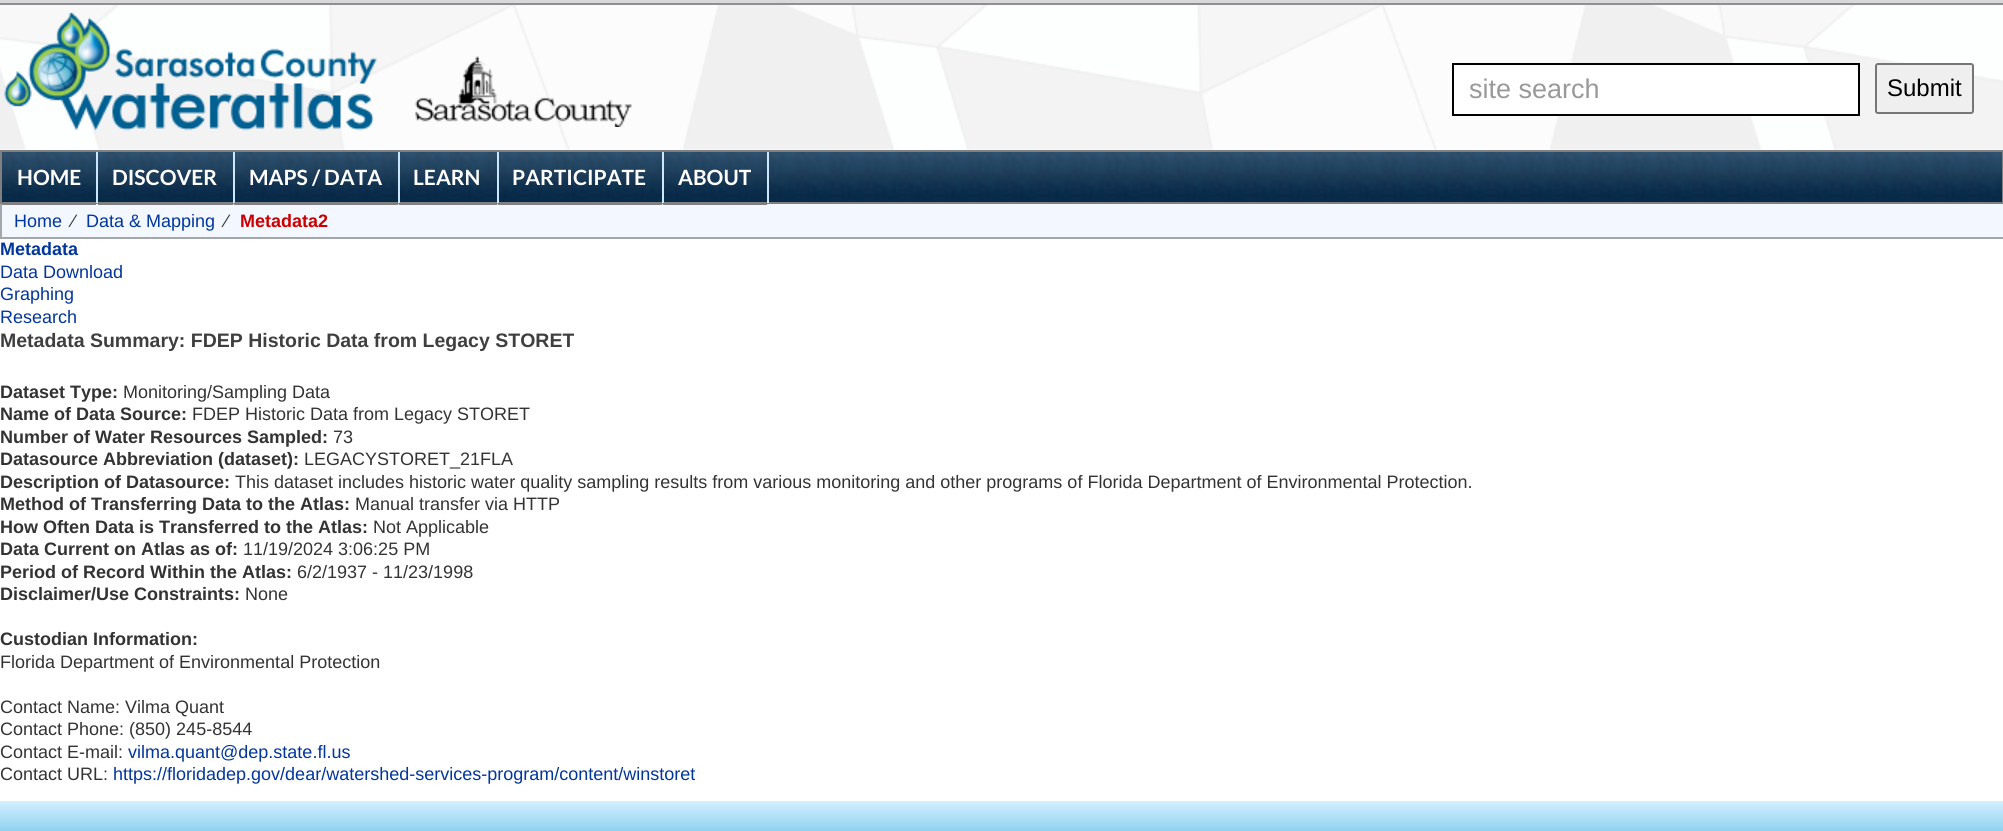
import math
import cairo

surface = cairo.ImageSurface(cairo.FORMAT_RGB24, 2003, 831)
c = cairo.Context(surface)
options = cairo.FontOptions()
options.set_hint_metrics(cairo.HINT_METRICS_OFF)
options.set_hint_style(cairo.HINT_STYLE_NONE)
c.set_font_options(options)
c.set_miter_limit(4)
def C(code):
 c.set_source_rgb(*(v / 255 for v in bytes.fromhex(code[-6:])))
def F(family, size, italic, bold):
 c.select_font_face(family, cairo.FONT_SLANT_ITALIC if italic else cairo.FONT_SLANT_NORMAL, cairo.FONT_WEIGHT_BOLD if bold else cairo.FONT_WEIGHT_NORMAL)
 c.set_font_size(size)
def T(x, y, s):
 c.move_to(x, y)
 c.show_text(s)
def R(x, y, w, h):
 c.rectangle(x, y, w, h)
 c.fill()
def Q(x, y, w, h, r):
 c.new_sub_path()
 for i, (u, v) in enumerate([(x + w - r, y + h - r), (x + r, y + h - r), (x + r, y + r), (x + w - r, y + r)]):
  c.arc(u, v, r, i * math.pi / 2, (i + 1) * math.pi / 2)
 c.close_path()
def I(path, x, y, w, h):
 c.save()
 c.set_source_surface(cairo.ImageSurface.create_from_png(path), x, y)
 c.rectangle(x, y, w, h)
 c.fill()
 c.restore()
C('ffffff')
c.paint()
C('d8d8da')
R(0,0,2003,3)
C('8f8f8f')
R(0,3,2003,2)
I('1.png',0,5,2003,145)
I('2.png',4,12,373,119)
I('3.png',415,56,217,71)
C('ffffff')
c.rectangle(1453,64,406,51)
c.fill_preserve()
C('000000')
c.stroke()
F('Liberation Sans',27,0,0)
C('999999')
T(1469,98,'site search')
C('efefef')
Q(1876,64,97,49,2)
c.fill_preserve()
C('767676')
c.stroke()
F('Liberation Sans',24,0,0)
C('000000')
T(1887,96,'Submit')
I('4.png',2,152,2000,50)
c.rectangle(1,151,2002,52)
C('808080')
c.stroke()
C('cce6fe')
R(96,152,2,51)
C('f3f7ff')
R(2,204,2001,33)
C('808080')
R(2,204,94,1)
F('Lato',21,0,1)
C('ffffff')
T(17,185,'HOME')
C('cce6fe')
R(233,152,2,51)
C('808080')
R(98,204,135,1)
C('ffffff')
T(112,185,'DISCOVER')
C('cce6fe')
R(398,152,2,51)
C('808080')
R(234,204,164,1)
C('ffffff')
T(249,185,'MAPS / DATA')
C('cce6fe')
R(497,152,2,51)
C('808080')
R(399,204,98,1)
C('ffffff')
T(413,185,'LEARN')
C('cce6fe')
R(662,152,2,51)
C('808080')
R(498,204,164,1)
C('ffffff')
T(512,185,'PARTICIPATE')
C('cce6fe')
R(767,152,2,51)
C('808080')
R(663,204,104,1)
C('ffffff')
T(678,185,'ABOUT')
C('a3a7aa')
R(0,237,2003,2)
R(0,204,2,35)
F('Liberation Sans',18,0,0)
C('01369c')
T(14,227,'Home')
C('333333')
T(72,227,'⁄')
C('01369c')
T(86,227,'Data & Mapping')
C('333333')
T(225,227,'⁄')
F('Liberation Sans',18,0,1)
C('cc0000')
T(240,227,'Metadata2')
C('01369c')
T(0,255,'Metadata')
F('Liberation Sans',18,0,0)
T(0,278,'Data Download')
T(0,300,'Graphing')
T(0,323,'Research')
F('Liberation Sans',19.5,0,1)
C('3f3f3f')
T(0,347,'Metadata Summary: FDEP Historic Data from Legacy STORET')
F('Liberation Sans',18,0,1)
C('333333')
T(0,398,'Dataset Type:')
F('Liberation Sans',18,0,0)
T(123,398,'Monitoring/Sampling Data')
F('Liberation Sans',18,0,1)
T(0,420,'Name of Data Source:')
F('Liberation Sans',18,0,0)
T(192,420,'FDEP Historic Data from Legacy STORET')
F('Liberation Sans',18,0,1)
T(0,443,'Number of Water Resources Sampled:')
F('Liberation Sans',18,0,0)
T(333,443,'73')
F('Liberation Sans',18,0,1)
T(0,465,'Datasource Abbreviation (dataset):')
F('Liberation Sans',18,0,0)
T(304,465,'LEGACYSTORET_21FLA')
F('Liberation Sans',18,0,1)
T(0,488,'Description of Datasource:')
F('Liberation Sans',18,0,0)
T(235,488,'This dataset includes historic water quality sampling results from various monitoring and other programs of Florida Department of Environmental Protection.')
F('Liberation Sans',18,0,1)
T(0,510,'Method of Transferring Data to the Atlas:')
F('Liberation Sans',18,0,0)
T(355,510,'Manual transfer via HTTP')
F('Liberation Sans',18,0,1)
T(0,533,'How Often Data is Transferred to the Atlas:')
F('Liberation Sans',18,0,0)
T(373,533,'Not Applicable')
F('Liberation Sans',18,0,1)
T(0,555,'Data Current on Atlas as of:')
F('Liberation Sans',18,0,0)
T(243,555,'11/19/2024 3:06:25 PM')
F('Liberation Sans',18,0,1)
T(0,578,'Period of Record Within the Atlas:')
F('Liberation Sans',18,0,0)
T(297,578,'6/2/1937 - 11/23/1998')
F('Liberation Sans',18,0,1)
T(0,600,'Disclaimer/Use Constraints:')
F('Liberation Sans',18,0,0)
T(245,600,'None')
F('Liberation Sans',18,0,1)
T(0,645,'Custodian Information:')
F('Liberation Sans',18,0,0)
T(0,668,'Florida Department of Environmental Protection')
T(0,713,'Contact Name: Vilma Quant')
T(0,735,'Contact Phone: (850) 245-8544')
T(0,758,'Contact E-mail:')
C('01369c')
T(128,758,'vilma.quant@dep.state.fl.us')
C('333333')
T(0,780,'Contact URL:')
C('01369c')
T(113,780,'https://floridadep.gov/dear/watershed-services-program/content/winstoret')
gradient = cairo.LinearGradient(1002,801,1002,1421)
gradient.add_color_stop_rgba(0,0.831,0.941,1,1)
gradient.add_color_stop_rgba(.15,0,0.573,0.816,1)
gradient.add_color_stop_rgba(.27,0,0.506,0.737,1)
gradient.add_color_stop_rgba(.71,0.004,0.259,0.447,1)
gradient.add_color_stop_rgba(.92,0.004,0.176,0.349,1)
gradient.add_color_stop_rgba(.99,0.004,0.157,0.329,1)
gradient.add_color_stop_rgba(1,0.02,0.173,0.337,1)
gradient.add_color_stop_rgba(1,0.647,0.733,0.78,1)
c.set_source(gradient)
R(0,801,2003,30)
surface.write_to_png('o.png')
